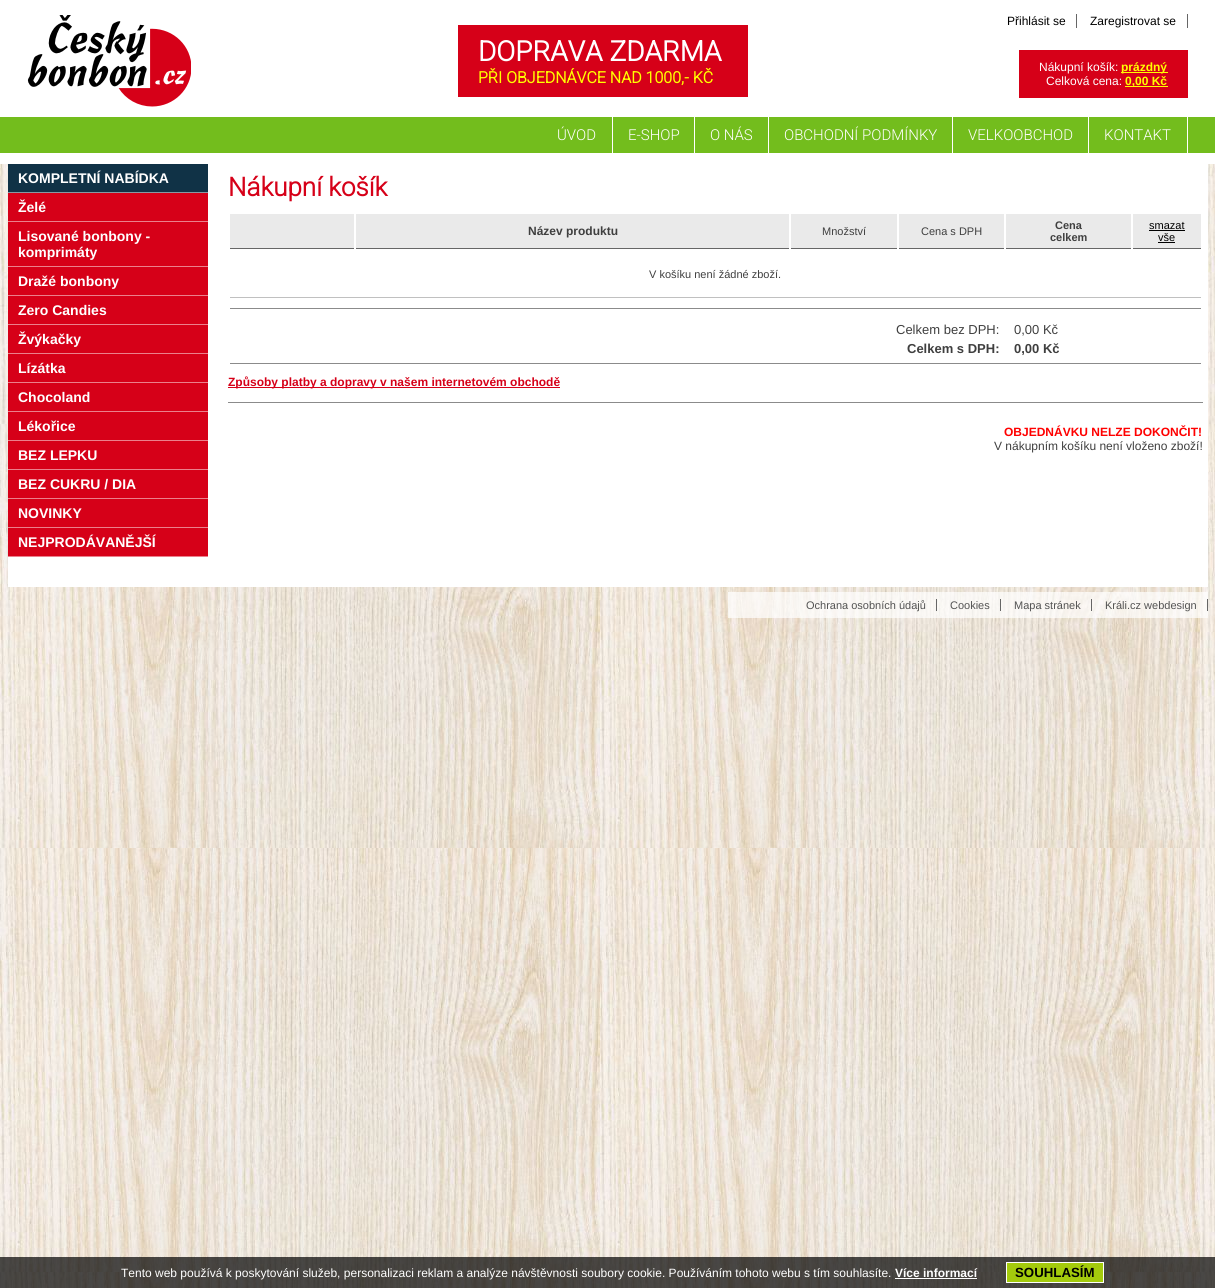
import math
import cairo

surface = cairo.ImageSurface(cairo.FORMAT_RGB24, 1215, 1288)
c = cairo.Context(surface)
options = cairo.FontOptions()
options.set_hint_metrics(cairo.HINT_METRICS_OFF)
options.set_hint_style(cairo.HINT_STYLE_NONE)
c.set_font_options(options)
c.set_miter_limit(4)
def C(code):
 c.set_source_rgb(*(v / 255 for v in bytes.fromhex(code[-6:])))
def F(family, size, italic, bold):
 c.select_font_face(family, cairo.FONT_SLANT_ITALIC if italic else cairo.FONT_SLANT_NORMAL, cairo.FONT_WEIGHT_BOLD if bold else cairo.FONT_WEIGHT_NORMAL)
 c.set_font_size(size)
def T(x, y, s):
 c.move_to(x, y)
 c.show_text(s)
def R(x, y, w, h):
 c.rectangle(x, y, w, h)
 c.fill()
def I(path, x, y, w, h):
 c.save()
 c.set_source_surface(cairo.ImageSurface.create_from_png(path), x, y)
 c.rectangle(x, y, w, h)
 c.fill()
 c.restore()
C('ffffff')
c.paint()
I('1.png',0,592,1215,696)
I('2.png',0,164,1215,428)
I('3.png',0,0,1215,164)
C('ffffff')
R(8,117,1200,470)
C('73bd1d')
R(8,117,1200,36)
I('4.png',27,15,164,92)
F('Liberation Sans',12,0,0)
C('000000')
T(1007,25,'Přihlásit se')
C('666666')
R(1076,14,1,14)
C('000000')
T(1090,25,'Zaregistrovat se')
C('666666')
R(1187,14,1,14)
C('d60018')
R(458,25,290,72)
F('Roboto',28,0,1)
C('ffffff')
T(478,61,'DOPRAVA ZDARMA')
F('Roboto',16,0,1)
C('ffff00')
T(478,83,'PŘI OBJEDNÁVCE NAD 1000,- KČ')
C('d60018')
R(1019,50,169,48)
F('Liberation Sans',12,0,0)
C('ffffff')
T(1039,71,'Nákupní košík:')
C('ffff00')
R(1121,72,47,1)
F('Liberation Sans',12,0,1)
T(1121,71,'prázdný')
F('Liberation Sans',12,0,0)
C('ffffff')
T(1046,85,'Celková cena:')
C('ffff00')
R(1125,86,43,1)
F('Liberation Sans',12,0,1)
T(1125,85,'0,00 Kč')
C('ffffff')
R(612,117,1,36)
F('Roboto Light',15,0,0)
T(557,140,'ÚVOD')
R(694,117,1,36)
T(628,140,'E-SHOP')
R(768,117,1,36)
T(710,140,'O NÁS')
R(952,117,1,36)
T(784,140,'OBCHODNÍ PODMÍNKY')
R(1088,117,1,36)
T(968,140,'VELKOOBCHOD')
R(1187,117,1,36)
T(1104,140,'KONTAKT')
C('103246')
R(8,164,200,28)
C('8899a3')
R(8,192,200,1)
F('Liberation Sans',14,0,1)
C('ffffff')
T(18,183,'KOMPLETNÍ NABÍDKA')
C('d60018')
R(8,193,200,28)
C('eb808c')
R(8,221,200,1)
C('ffffff')
T(18,212,'Želé')
C('d60018')
R(8,222,200,44)
C('eb808c')
R(8,266,200,1)
C('ffffff')
T(18,241,'Lisované bonbony -')
T(18,257,'komprimáty')
C('d60018')
R(8,267,200,28)
C('eb808c')
R(8,295,200,1)
C('ffffff')
T(18,286,'Dražé bonbony')
C('d60018')
R(8,296,200,28)
C('eb808c')
R(8,324,200,1)
C('ffffff')
T(18,315,'Zero Candies')
C('d60018')
R(8,325,200,28)
C('eb808c')
R(8,353,200,1)
C('ffffff')
T(18,344,'Žvýkačky')
C('d60018')
R(8,354,200,28)
C('eb808c')
R(8,382,200,1)
C('ffffff')
T(18,373,'Lízátka')
C('d60018')
R(8,383,200,28)
C('eb808c')
R(8,411,200,1)
C('ffffff')
T(18,402,'Chocoland')
C('d60018')
R(8,412,200,28)
C('eb808c')
R(8,440,200,1)
C('ffffff')
T(18,431,'Lékořice')
C('d60018')
R(8,441,200,28)
C('eb808c')
R(8,469,200,1)
C('ffffff')
T(18,460,'BEZ LEPKU')
C('d60018')
R(8,470,200,28)
C('eb808c')
R(8,498,200,1)
C('ffffff')
T(18,489,'BEZ CUKRU / DIA')
C('d60018')
R(8,499,200,28)
C('eb808c')
R(8,527,200,1)
C('ffffff')
T(18,518,'NOVINKY')
C('d60018')
R(8,528,200,28)
C('eb808c')
R(8,556,200,1)
C('ffffff')
T(18,547,'NEJPRODÁVANĚJŠÍ')
F('Roboto',26,0,1)
C('d60018')
T(228,196,'Nákupní košík')
C('eaeaea')
R(230,214,124,34)
C('666666')
R(230,248,124,1)
C('eaeaea')
R(356,214,433,34)
C('666666')
R(356,248,433,1)
F('Liberation Sans',12,0,1)
C('3f3f3f')
T(528,235,'Název produktu')
C('eaeaea')
R(791,214,106,34)
C('666666')
R(791,248,106,1)
F('Liberation Sans',11,0,0)
C('3f3f3f')
T(822,235,'Množství')
C('eaeaea')
R(899,214,105,34)
C('666666')
R(899,248,105,1)
C('3f3f3f')
T(921,235,'Cena s DPH')
C('eaeaea')
R(1006,214,125,34)
C('666666')
R(1006,248,125,1)
F('Liberation Sans',11,0,1)
C('3f3f3f')
T(1055,229,'Cena')
T(1050,241,'celkem')
C('eaeaea')
R(1133,214,68,34)
C('666666')
R(1133,248,68,1)
F('Liberation Sans',11,0,0)
C('000000')
T(1149,229,'smazat')
R(1149,230,36,1)
T(1158,241,'vše')
R(1158,242,17,1)
C('c0c0c0')
R(230,297,971,1)
C('3f3f3f')
T(649,278,'V košíku není žádné zboží.')
C('8b8b8b')
R(230,308,971,1)
F('Liberation Sans',13,0,0)
C('3f3f3f')
T(896,334,'Celkem bez DPH:')
T(1014,334,'0,00 Kč')
F('Liberation Sans',13,0,1)
T(907,353,'Celkem s DPH:')
T(1014,353,'0,00 Kč')
C('8b8b8b')
R(230,363,971,1)
C('d60018')
R(228,387,332,1)
F('Liberation Sans',12,0,1)
T(228,386,'Způsoby platby a dopravy v našem internetovém obchodě')
C('8b8b8b')
R(228,402,975,1)
C('ff0000')
T(1004,436,'OBJEDNÁVKU NELZE DOKONČIT!')
F('Liberation Sans',12,0,0)
C('3f3f3f')
T(994,450,'V nákupním košíku není vloženo zboží!')
c.set_source_rgba(1,1,1,0.7)
R(728,592,480,26)
F('Liberation Sans',11,0,0)
C('535353')
T(806,609,'Ochrana osobních údajů')
C('666666')
R(936,599,1,12)
C('535353')
T(950,609,'Cookies')
C('666666')
R(1000,599,1,12)
C('535353')
T(1014,609,'Mapa stránek')
C('666666')
R(1091,599,1,12)
C('535353')
T(1105,609,'Králi.cz webdesign')
C('666666')
R(1207,599,1,12)
c.set_source_rgba(0,0,0,0.7)
R(0,1257,1215,31)
F('Liberation Sans',12,0,0)
C('ffffff')
T(121,1277,'Tento web používá k poskytování služeb, personalizaci reklam a analýze návštěvnosti soubory cookie. Používáním tohoto webu s tím souhlasíte.')
F('Liberation Sans',12,0,1)
T(895,1277,'Více informací')
R(895,1278,82,1)
C('a4cb0c')
c.rectangle(1006.5,1262.5,97,20)
c.fill_preserve()
C('ffffff')
c.set_line_width(1)
c.stroke()
F('Liberation Sans',13.25,0,1)
C('000000')
T(1015,1277,'SOUHLASÍM')
surface.write_to_png('o.png')
